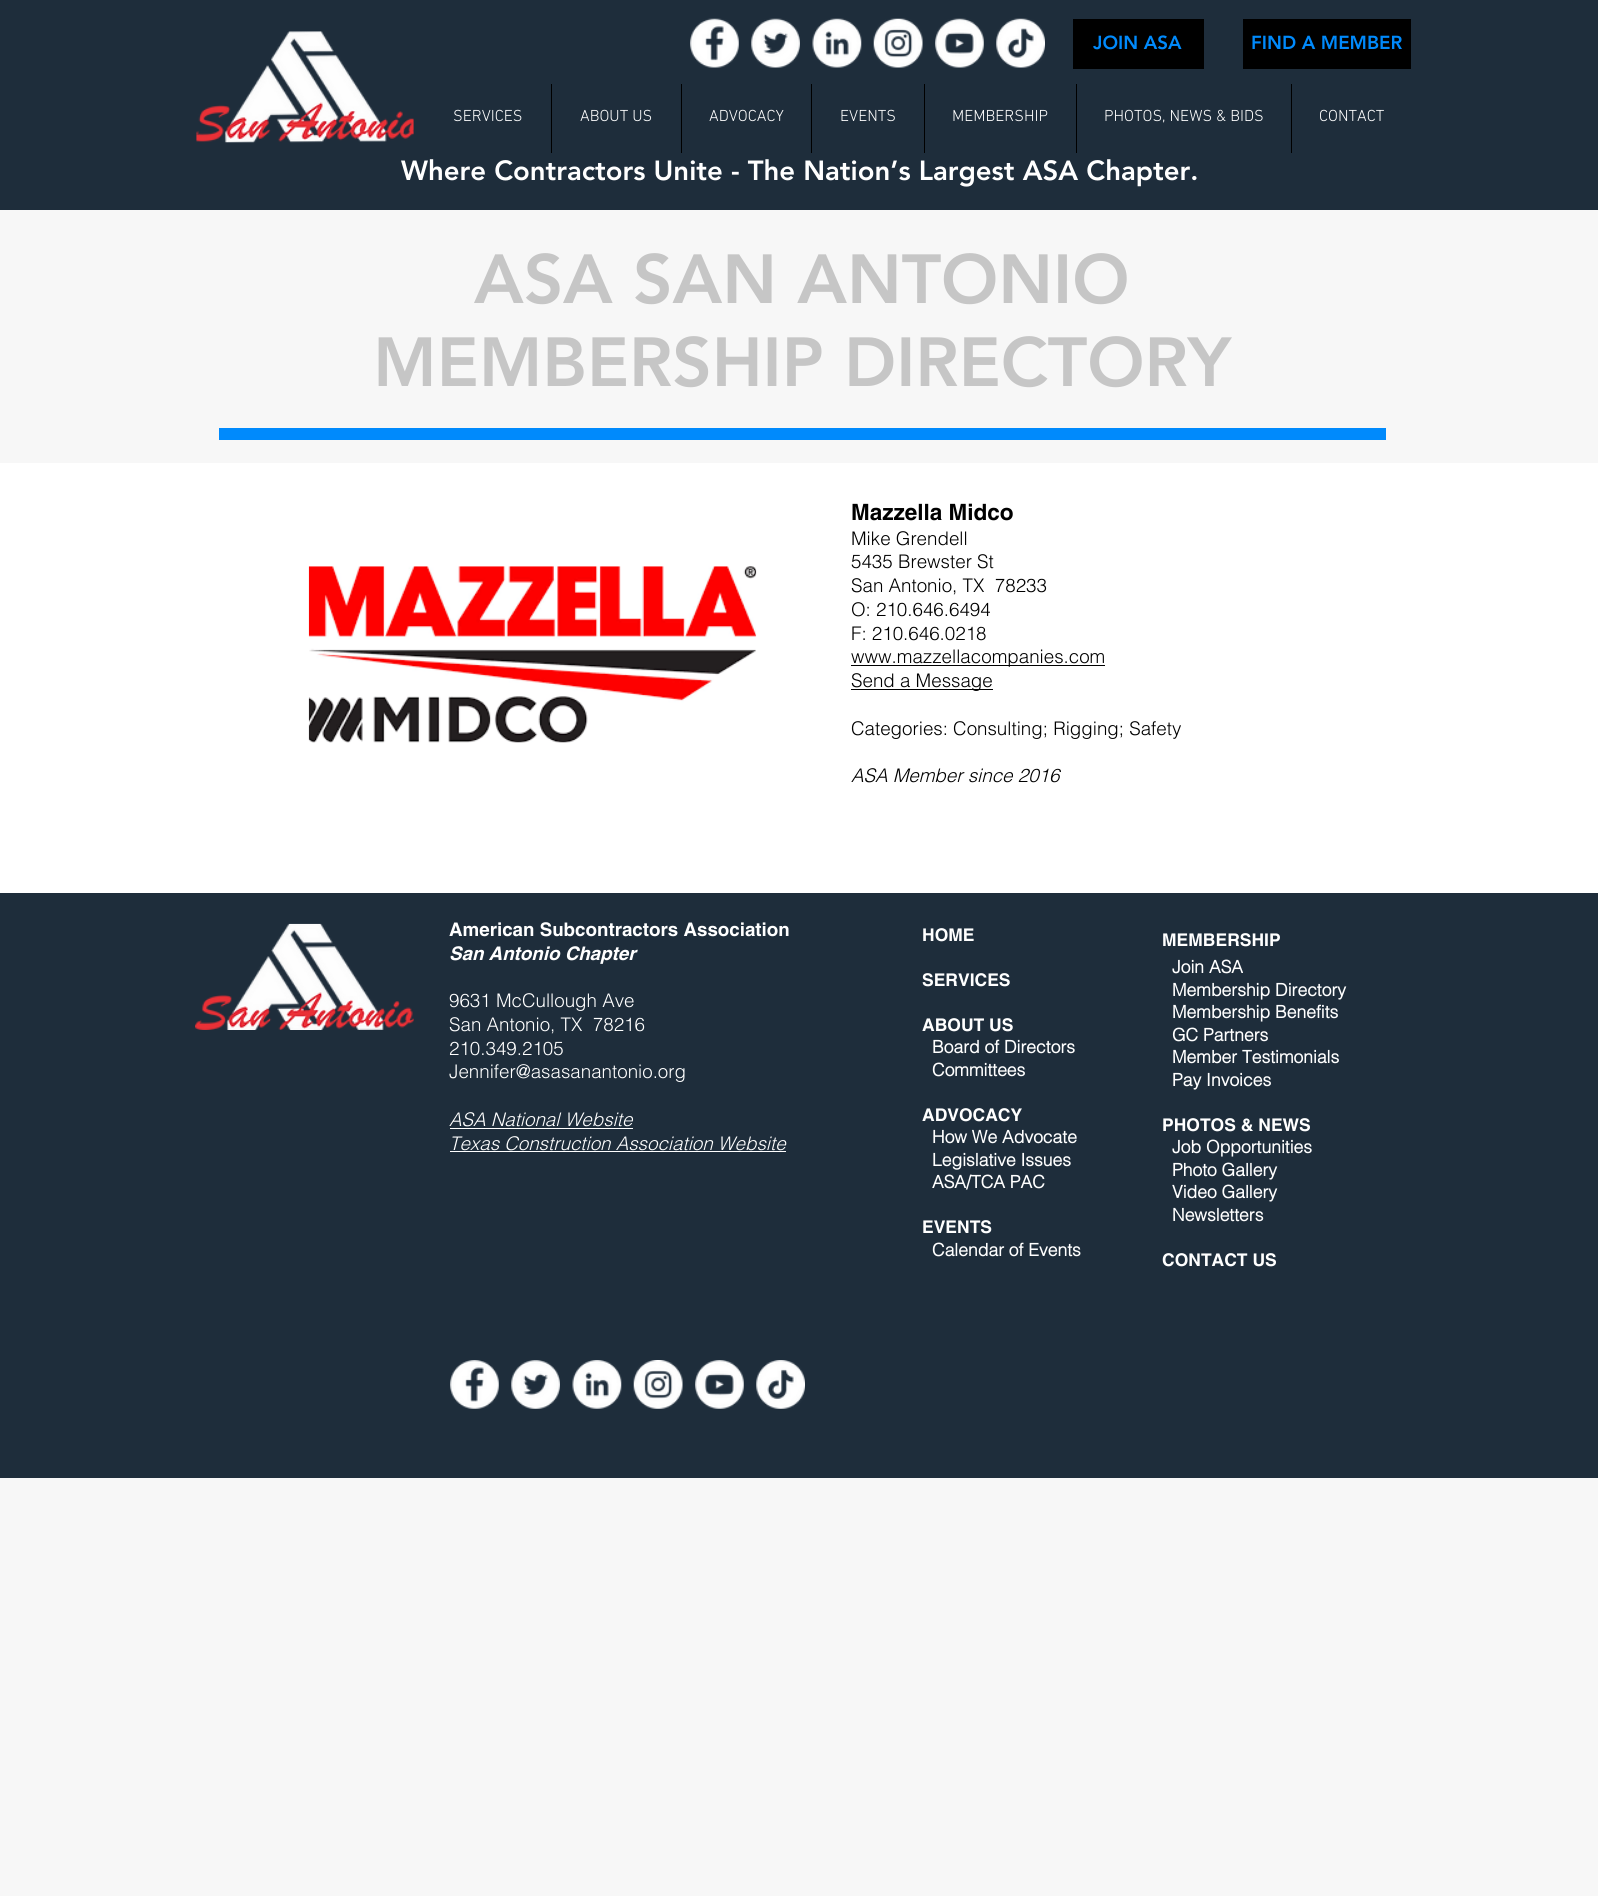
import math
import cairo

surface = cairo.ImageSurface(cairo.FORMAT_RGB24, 1598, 1896)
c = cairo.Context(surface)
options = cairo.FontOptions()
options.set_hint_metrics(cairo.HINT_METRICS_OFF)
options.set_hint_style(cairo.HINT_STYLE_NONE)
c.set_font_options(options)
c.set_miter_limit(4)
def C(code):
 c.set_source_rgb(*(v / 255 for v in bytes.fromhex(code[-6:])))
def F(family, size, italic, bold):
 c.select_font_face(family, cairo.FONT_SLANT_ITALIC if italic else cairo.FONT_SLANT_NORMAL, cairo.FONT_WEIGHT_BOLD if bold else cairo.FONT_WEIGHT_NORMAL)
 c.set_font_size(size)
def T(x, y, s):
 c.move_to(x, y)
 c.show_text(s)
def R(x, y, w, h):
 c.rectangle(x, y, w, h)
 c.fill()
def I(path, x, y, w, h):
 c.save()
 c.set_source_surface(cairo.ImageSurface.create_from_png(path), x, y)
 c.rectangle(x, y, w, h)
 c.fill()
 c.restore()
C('f7f7f7')
c.paint()
C('1e2d3b')
R(0,0,1598,210)
I('1.png',196,31,218,112)
I('2.png',690,18,49,50)
I('3.png',751,18,49,50)
I('4.png',812,18,50,50)
I('5.png',873,18,50,50)
I('6.png',935,18,49,50)
I('7.png',996,18,49,50)
C('000000')
R(1073,19,131,50)
F('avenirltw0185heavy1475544 Black',18.75,0,0)
C('008afc')
T(1093,49,'JOIN ASA')
C('000000')
R(1243,19,168,50)
C('008afc')
T(1251,49,'FIND A MEMBER')
F('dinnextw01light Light',16.25,0,0)
C('ffffff')
T(453,121,'SERVICES')
C('000000')
R(551,84,1,69)
C('ffffff')
T(580,121,'ABOUT US')
C('000000')
R(681,84,1,69)
C('ffffff')
T(709,121,'ADVOCACY')
C('000000')
R(811,84,1,69)
C('ffffff')
T(840,121,'EVENTS')
C('000000')
R(924,84,1,69)
C('ffffff')
T(952,121,'MEMBERSHIP')
C('000000')
R(1076,84,1,69)
C('ffffff')
T(1104,121,'PHOTOS, NEWS & BIDS')
C('000000')
R(1291,84,1,69)
C('ffffff')
T(1319,121,'CONTACT')
F('avenirltw0185heavy1475544 Black',27.5,0,0)
T(401,180,'Where Contractors Unite - The Nation’s Largest ASA Chapter.')
F('avenirltw0185heavy1475544 Black',68.75,0,0)
C('c6c6c6')
T(474,303,'ASA SAN ANTONIO')
T(373,386,'MEMBERSHIP DIRECTORY')
C('008afc')
R(219,428,1167,12)
C('ffffff')
R(0,463,1598,430)
I('8.png',308,566,449,177)
F('helvetica',22.5,0,1)
C('000000')
T(851,520,'Mazzella Midco')
F('helvetica Light',18.75,0,0)
T(851,545,'Mike Grendell')
T(851,568,'5435 Brewster St')
T(851,592,'San Antonio, TX  78233')
T(851,616,'O: 210.646.6494')
T(851,640,'F: 210.646.0218')
R(851,665,254,1)
T(851,663,'www.mazzellacompanies.com')
R(851,689,142,1)
T(851,687,'Send a Message')
T(851,735,'Categories: Consulting; Rigging; Safety')
F('helvetica Light',18.75,1,0)
T(851,782,'ASA Member since 2016')
C('1e2d3b')
R(0,893,1598,585)
I('9.png',195,923,219,107)
F('helvetica',18.75,0,1)
C('ffffff')
T(449,936,'American Subcontractors Association')
F('helvetica',18.75,1,1)
T(449,960,'San Antonio Chapter')
F('helvetica Light',18.75,0,0)
T(449,1007,'9631 McCullough Ave')
T(449,1031,'San Antonio, TX  78216')
T(449,1055,'210.349.2105')
T(449,1078,'Jennifer@asasanantonio.org')
F('helvetica Light',18.75,1,0)
T(449,1126,'ASA National Website')
R(450,1128,183,1)
T(449,1150,'Texas Construction Association Website')
R(450,1151,336,1)
F('helvetica',17.5,0,1)
T(922,941,'HOME')
T(922,986,'SERVICES')
T(922,1031,'ABOUT US')
F('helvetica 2',17.5,0,1)
T(932,1053,'Board of Directors')
T(932,1076,'Committees')
F('helvetica',17.5,0,1)
T(922,1121,'ADVOCACY')
F('helvetica 2',17.5,0,1)
T(932,1143,'How We Advocate')
T(932,1166,'Legislative Issues')
T(932,1188,'ASA/TCA PAC')
F('helvetica',17.5,0,1)
T(922,1233,'EVENTS')
F('helvetica 2',17.5,0,1)
T(932,1256,'Calendar of Events')
F('helvetica',17.5,0,1)
T(1162,946,'MEMBERSHIP')
F('helvetica 2',17.5,0,1)
T(1172,973,'Join ASA')
T(1172,996,'Membership Directory')
T(1172,1018,'Membership Benefits')
T(1172,1041,'GC Partners')
T(1172,1063,'Member Testimonials')
T(1172,1086,'Pay Invoices')
F('helvetica',17.5,0,1)
T(1162,1131,'PHOTOS & NEWS')
F('helvetica 2',17.5,0,1)
T(1172,1153,'Job Opportunities')
T(1172,1176,'Photo Gallery')
T(1172,1198,'Video Gallery')
T(1172,1221,'Newsletters')
F('helvetica',17.5,0,1)
T(1162,1266,'CONTACT US')
I('10.png',450,1360,49,49)
I('11.png',511,1360,49,49)
I('12.png',572,1360,50,49)
I('13.png',633,1360,50,49)
I('14.png',695,1360,49,49)
I('15.png',756,1360,49,49)
surface.write_to_png('o.png')
